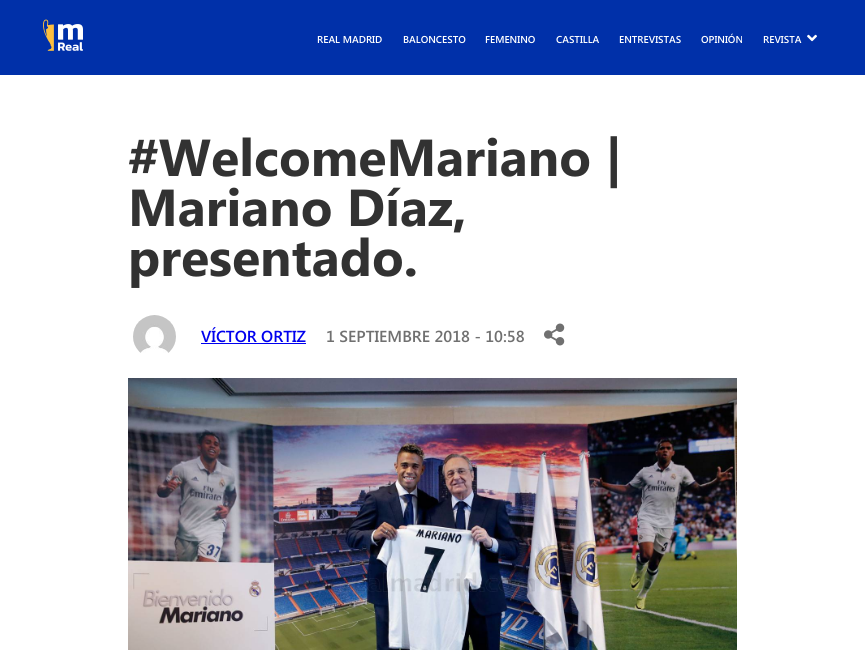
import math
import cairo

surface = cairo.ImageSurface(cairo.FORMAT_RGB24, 865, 650)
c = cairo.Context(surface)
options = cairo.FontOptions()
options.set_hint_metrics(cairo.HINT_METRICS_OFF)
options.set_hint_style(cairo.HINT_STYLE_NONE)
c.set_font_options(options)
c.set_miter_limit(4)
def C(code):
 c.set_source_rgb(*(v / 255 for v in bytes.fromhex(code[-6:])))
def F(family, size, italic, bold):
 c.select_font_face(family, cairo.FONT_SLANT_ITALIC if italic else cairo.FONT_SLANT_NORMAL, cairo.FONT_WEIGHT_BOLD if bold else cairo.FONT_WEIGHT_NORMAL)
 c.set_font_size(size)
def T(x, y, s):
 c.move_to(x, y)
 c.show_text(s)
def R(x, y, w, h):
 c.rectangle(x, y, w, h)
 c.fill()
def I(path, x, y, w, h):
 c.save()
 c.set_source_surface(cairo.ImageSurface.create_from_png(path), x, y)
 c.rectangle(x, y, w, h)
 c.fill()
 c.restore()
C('ffffff')
c.paint()
C('0030a9')
R(0,0,865,75)
I('1.png',43,19,40,32)
F('Segoe UI SemiBold',10,0,0)
C('ffffff')
T(317,43,'REAL MADRID')
T(403,43,'BALONCESTO')
T(485,43,'FEMENINO')
T(556,43,'CASTILLA')
T(619,43,'ENTREVISTAS')
T(701,43,'OPINIÓN')
T(763,43,'REVISTA')
I('2.png',807,34,10,8)
F('Segoe UI',52,0,1)
C('323232')
T(128,176,'#WelcomeMariano |')
T(128,226,'Mariano Díaz,')
T(128,276,'presentado.')
I('3.png',133,315,43,38)
F('Segoe UI SemiBold',16,0,0)
C('0000ee')
T(201,342,'VÍCTOR ORTIZ')
R(201,343,105,1)
C('707070')
T(326,342,'1 SEPTIEMBRE 2018 - 10:58')
I('4.png',544,323,21,23)
I('5.png',128,378,609,272)
surface.write_to_png('o.png')
